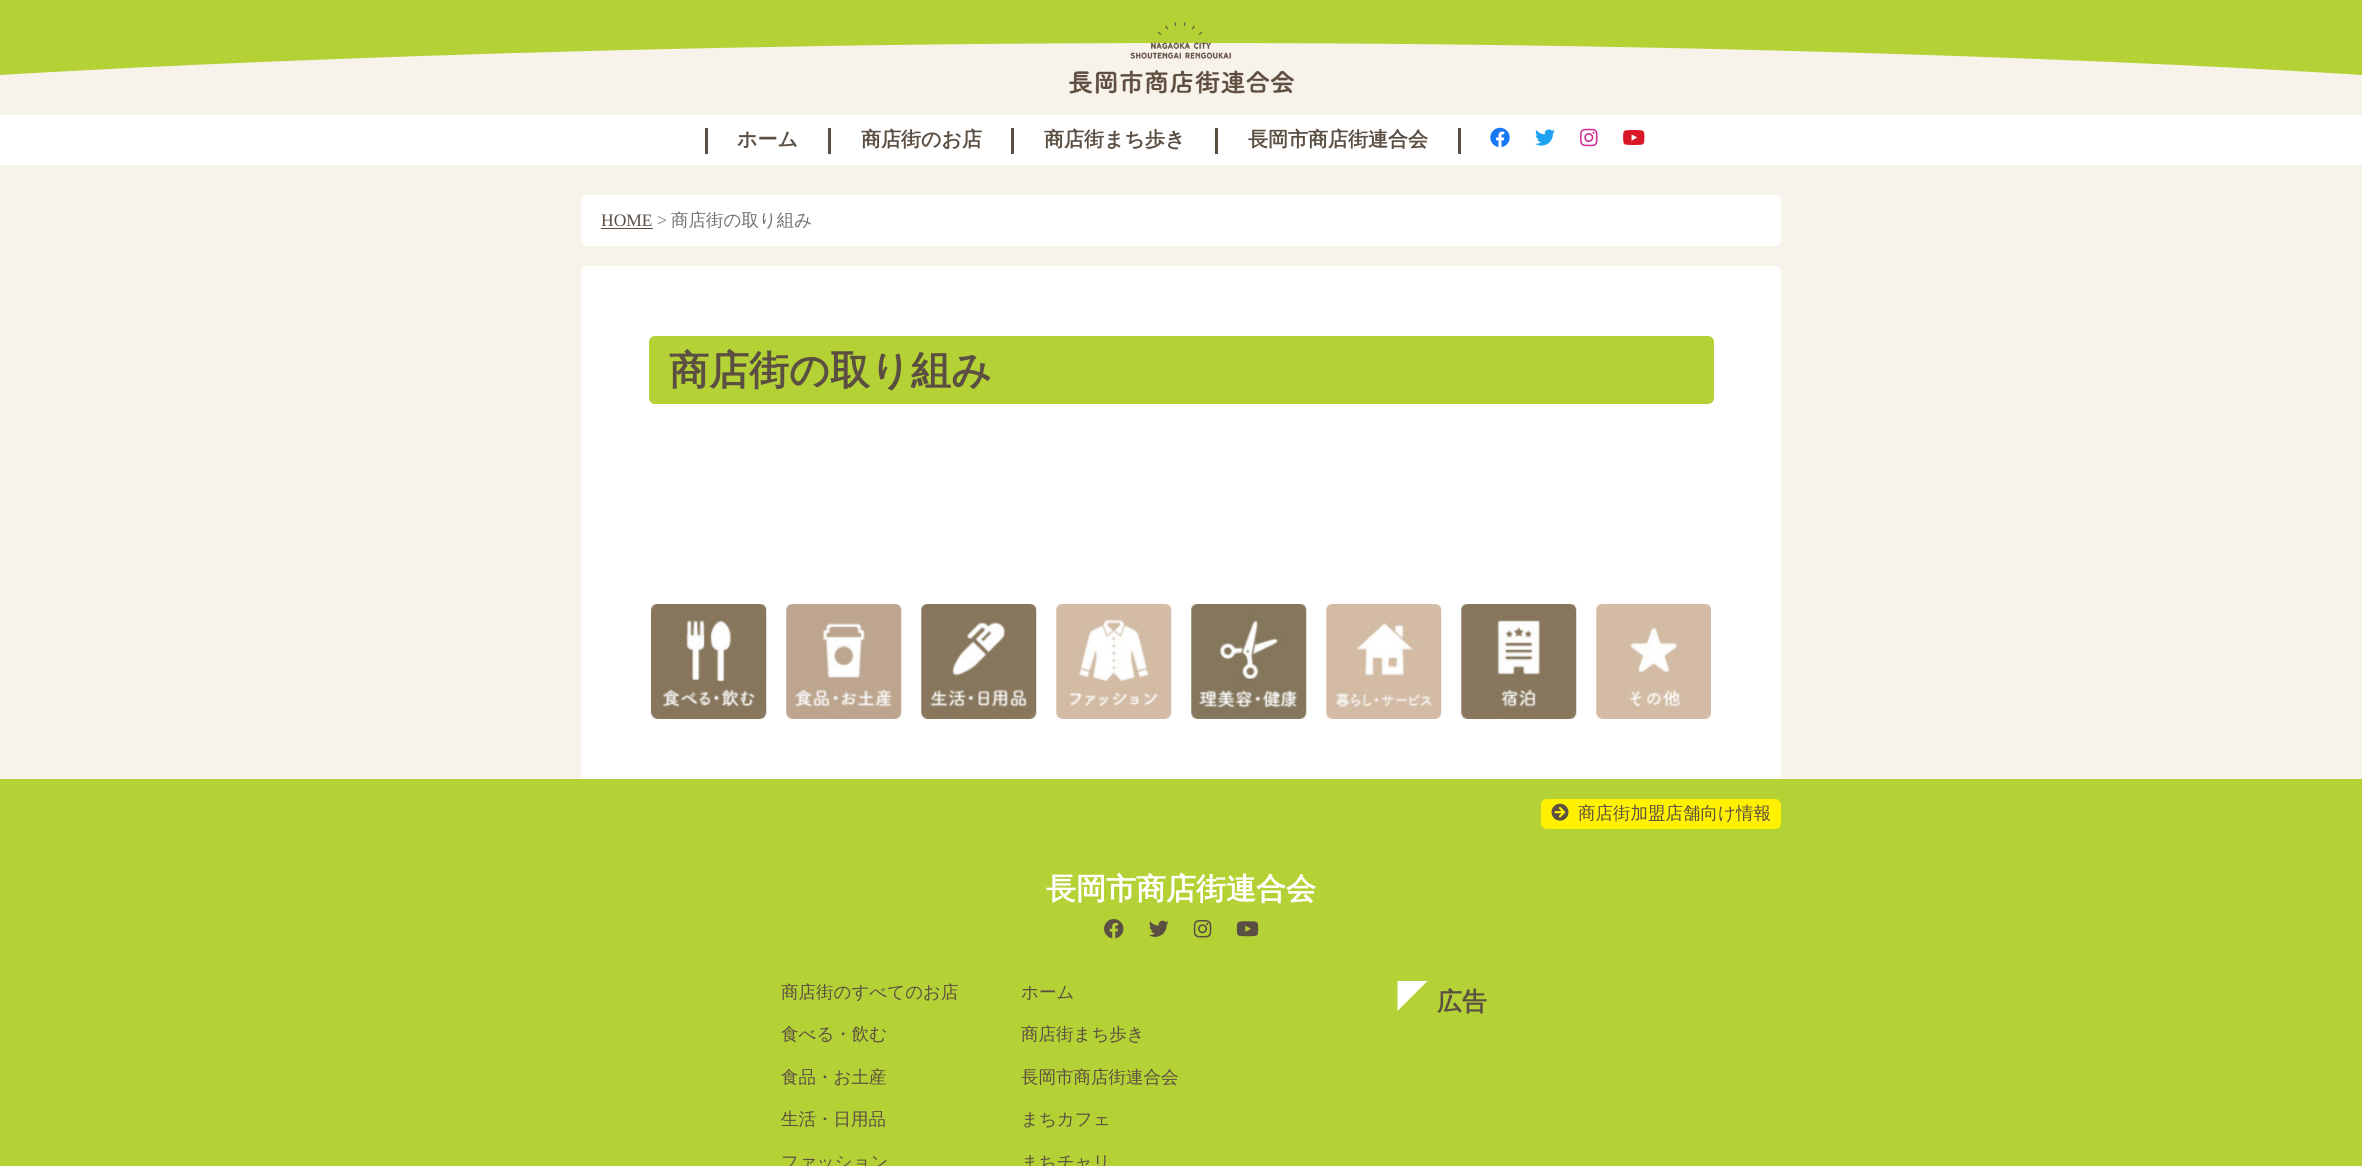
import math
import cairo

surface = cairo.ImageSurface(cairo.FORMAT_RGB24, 2362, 1166)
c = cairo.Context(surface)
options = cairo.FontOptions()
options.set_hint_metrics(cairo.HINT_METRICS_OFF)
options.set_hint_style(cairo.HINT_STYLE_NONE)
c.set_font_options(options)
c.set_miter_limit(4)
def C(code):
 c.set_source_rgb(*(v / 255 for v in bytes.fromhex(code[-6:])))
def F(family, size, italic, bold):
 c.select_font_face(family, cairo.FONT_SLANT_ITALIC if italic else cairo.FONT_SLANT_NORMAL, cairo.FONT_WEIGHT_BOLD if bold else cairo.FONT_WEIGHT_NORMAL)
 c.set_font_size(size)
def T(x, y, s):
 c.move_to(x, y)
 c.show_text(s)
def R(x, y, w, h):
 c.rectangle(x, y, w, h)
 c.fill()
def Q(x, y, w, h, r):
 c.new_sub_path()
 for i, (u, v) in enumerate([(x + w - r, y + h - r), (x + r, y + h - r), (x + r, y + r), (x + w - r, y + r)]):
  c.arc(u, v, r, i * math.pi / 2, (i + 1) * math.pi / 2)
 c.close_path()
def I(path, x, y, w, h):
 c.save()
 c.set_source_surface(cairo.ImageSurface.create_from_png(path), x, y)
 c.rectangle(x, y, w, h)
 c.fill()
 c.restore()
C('f7f3ea')
c.paint()
C('b4d135')
c.new_path()
c.move_to(0,-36)
c.line_to(2362,-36)
c.line_to(2362,75)
c.curve_to(2362,75,1887,43,1193,43)
c.curve_to(499,43,0,75,0,75)
c.close_path()
c.fill()
I('1.png',1068,22,226,72)
C('ffffff')
R(0,115,2362,50)
C('5b4e42')
R(705,128,3,26)
F('WenQuanYi Zen Hei',20,0,1)
T(737,146,'ホーム')
R(828,128,3,26)
T(861,146,'商店街のお店')
R(1011,128,3,26)
T(1044,146,'商店街まち歩き')
R(1458,128,3,26)
R(1215,128,3,26)
T(1248,146,'長岡市商店街連合会')
I('2.png',1490,127,20,20)
I('3.png',1535,129,20,17)
I('4.png',1580,128,18,19)
I('5.png',1623,130,22,15)
C('ffffff')
Q(581,195,1200,51,6)
c.fill()
F('Liberation Serif',17.5,0,0)
C('5b4e42')
T(601,226,'HOME')
R(601,228,52,1)
C('707070')
T(657,226,'>')
F('WenQuanYi Zen Hei Medium',17.5,0,0)
T(671,226,'商店街の取り組み')
C('ffffff')
c.new_path()
c.move_to(587,266)
c.line_to(1775,266)
c.curve_to(1778.5,266,1781,268.5,1781,272)
c.line_to(1781,779)
c.line_to(581,779)
c.line_to(581,272)
c.curve_to(581,268.5,583.5,266,587,266)
c.close_path()
c.fill()
C('b4d135')
Q(649,336,1065,68,6)
c.fill()
F('WenQuanYi Zen Hei',40,0,1)
C('5b4e42')
T(669,384,'商店街の取り組み')
I('6.png',651,604,116,115)
I('7.png',786,604,116,115)
I('8.png',921,604,116,115)
I('9.png',1056,604,116,115)
I('10.png',1191,604,116,115)
I('11.png',1326,604,116,115)
I('12.png',1461,604,116,115)
I('13.png',1596,604,115,115)
C('b4d135')
R(0,779,2362,387)
C('fff100')
Q(1541,799,240,30,6)
c.fill()
I('14.png',1551,803,18,18)
F('WenQuanYi Zen Hei Medium',17.5,0,0)
C('5b4e42')
T(1578,819,'商店街加盟店舗向け情報')
F('WenQuanYi Zen Hei',30,0,1)
C('ffffff')
T(1046,899,'長岡市商店街連合会')
I('15.png',1104,919,20,20)
I('16.png',1149,920,20,17)
I('17.png',1193,920,19,18)
I('18.png',1236,921,23,16)
F('WenQuanYi Zen Hei Medium',17.5,0,0)
C('5b4e42')
T(781,998,'商店街のすべてのお店')
T(781,1040,'食べる・飲む')
T(781,1083,'食品・お土産')
T(781,1125,'生活・日用品')
T(781,1168,'ファッション')
T(1021,998,'ホーム')
T(1021,1040,'商店街まち歩き')
T(1021,1083,'長岡市商店街連合会')
T(1021,1125,'まちカフェ')
T(1021,1168,'まちチャリ')
C('ffffff')
c.new_path()
c.move_to(1397.5,1011)
c.line_to(1397.5,981)
c.line_to(1427.5,981)
c.close_path()
c.fill()
F('WenQuanYi Zen Hei',25,0,1)
C('5b4e42')
T(1437,1010,'広告')
surface.write_to_png('o.png')
